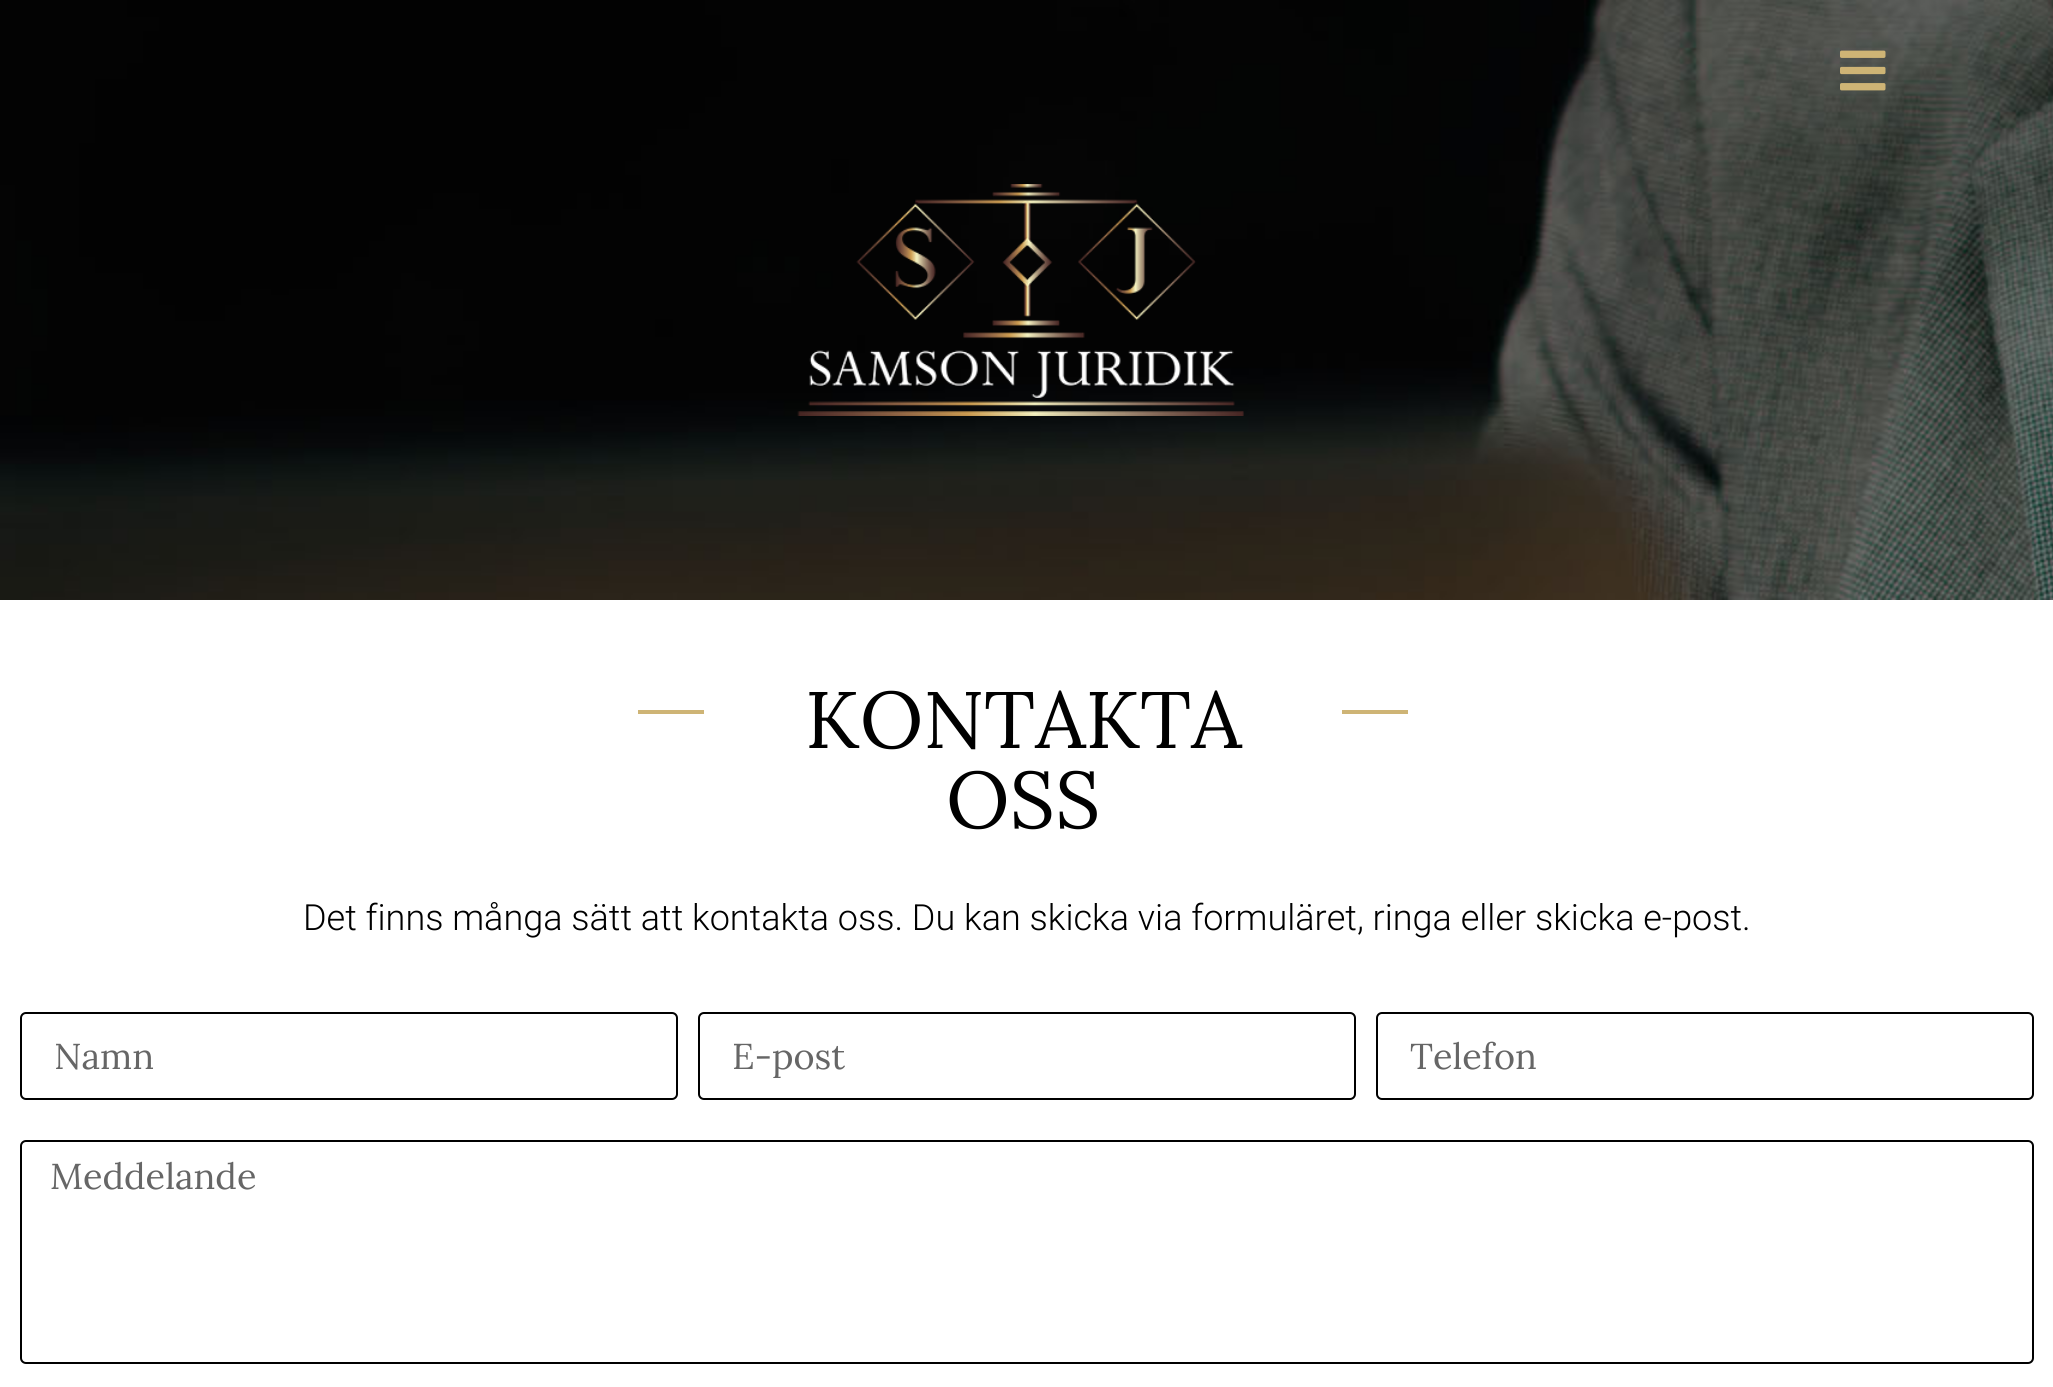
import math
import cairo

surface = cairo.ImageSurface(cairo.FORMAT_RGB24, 2053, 1387)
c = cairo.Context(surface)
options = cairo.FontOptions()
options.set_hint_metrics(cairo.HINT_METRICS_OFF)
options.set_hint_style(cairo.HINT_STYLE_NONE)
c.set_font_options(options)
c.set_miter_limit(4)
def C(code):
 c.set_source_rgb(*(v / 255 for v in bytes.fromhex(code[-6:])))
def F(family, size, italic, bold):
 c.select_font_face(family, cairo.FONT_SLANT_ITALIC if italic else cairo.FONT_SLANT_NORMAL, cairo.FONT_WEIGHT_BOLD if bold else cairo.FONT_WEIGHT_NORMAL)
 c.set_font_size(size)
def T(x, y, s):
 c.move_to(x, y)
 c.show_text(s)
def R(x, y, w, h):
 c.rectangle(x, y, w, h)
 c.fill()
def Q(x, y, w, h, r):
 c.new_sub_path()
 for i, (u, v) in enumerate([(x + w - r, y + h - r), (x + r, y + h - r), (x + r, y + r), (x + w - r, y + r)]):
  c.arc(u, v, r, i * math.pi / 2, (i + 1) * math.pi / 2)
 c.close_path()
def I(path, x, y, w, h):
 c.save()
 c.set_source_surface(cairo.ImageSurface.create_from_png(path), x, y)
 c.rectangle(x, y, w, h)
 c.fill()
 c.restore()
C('ffffff')
c.paint()
I('2.png',0,0,2053,600)
I('1.png',1840,50,46,41)
I('3.png',797,184,447,232)
C('ceb475')
R(638,710,66,4)
F('Lora',80,0,0)
C('000000')
T(805,748,'KONTAKTA')
T(946,828,'OSS')
C('ceb475')
R(1342,710,66,4)
F('Roboto Light',36,0,0)
C('000000')
T(303,930,'Det finns många sätt att kontakta oss. Du kan skicka via formuläret, ringa eller skicka e-post.')
Q(21,1013,656,86,5)
c.stroke()
F('Lora',36,0,0)
C('666666')
T(54,1069,'Namn')
Q(699,1013,656,86,5)
C('000000')
c.stroke()
c.save()
c.rectangle(732,1032,590,46)
c.clip()
C('666666')
T(732,1069,'E-post')
c.restore()
Q(1377,1013,656,86,5)
c.stroke()
C('666666')
T(1410,1069,'Telefon')
Q(21,1141,2012,222,5)
C('000000')
c.stroke()
C('666666')
T(50,1189,'Meddelande')
surface.write_to_png('o.png')
